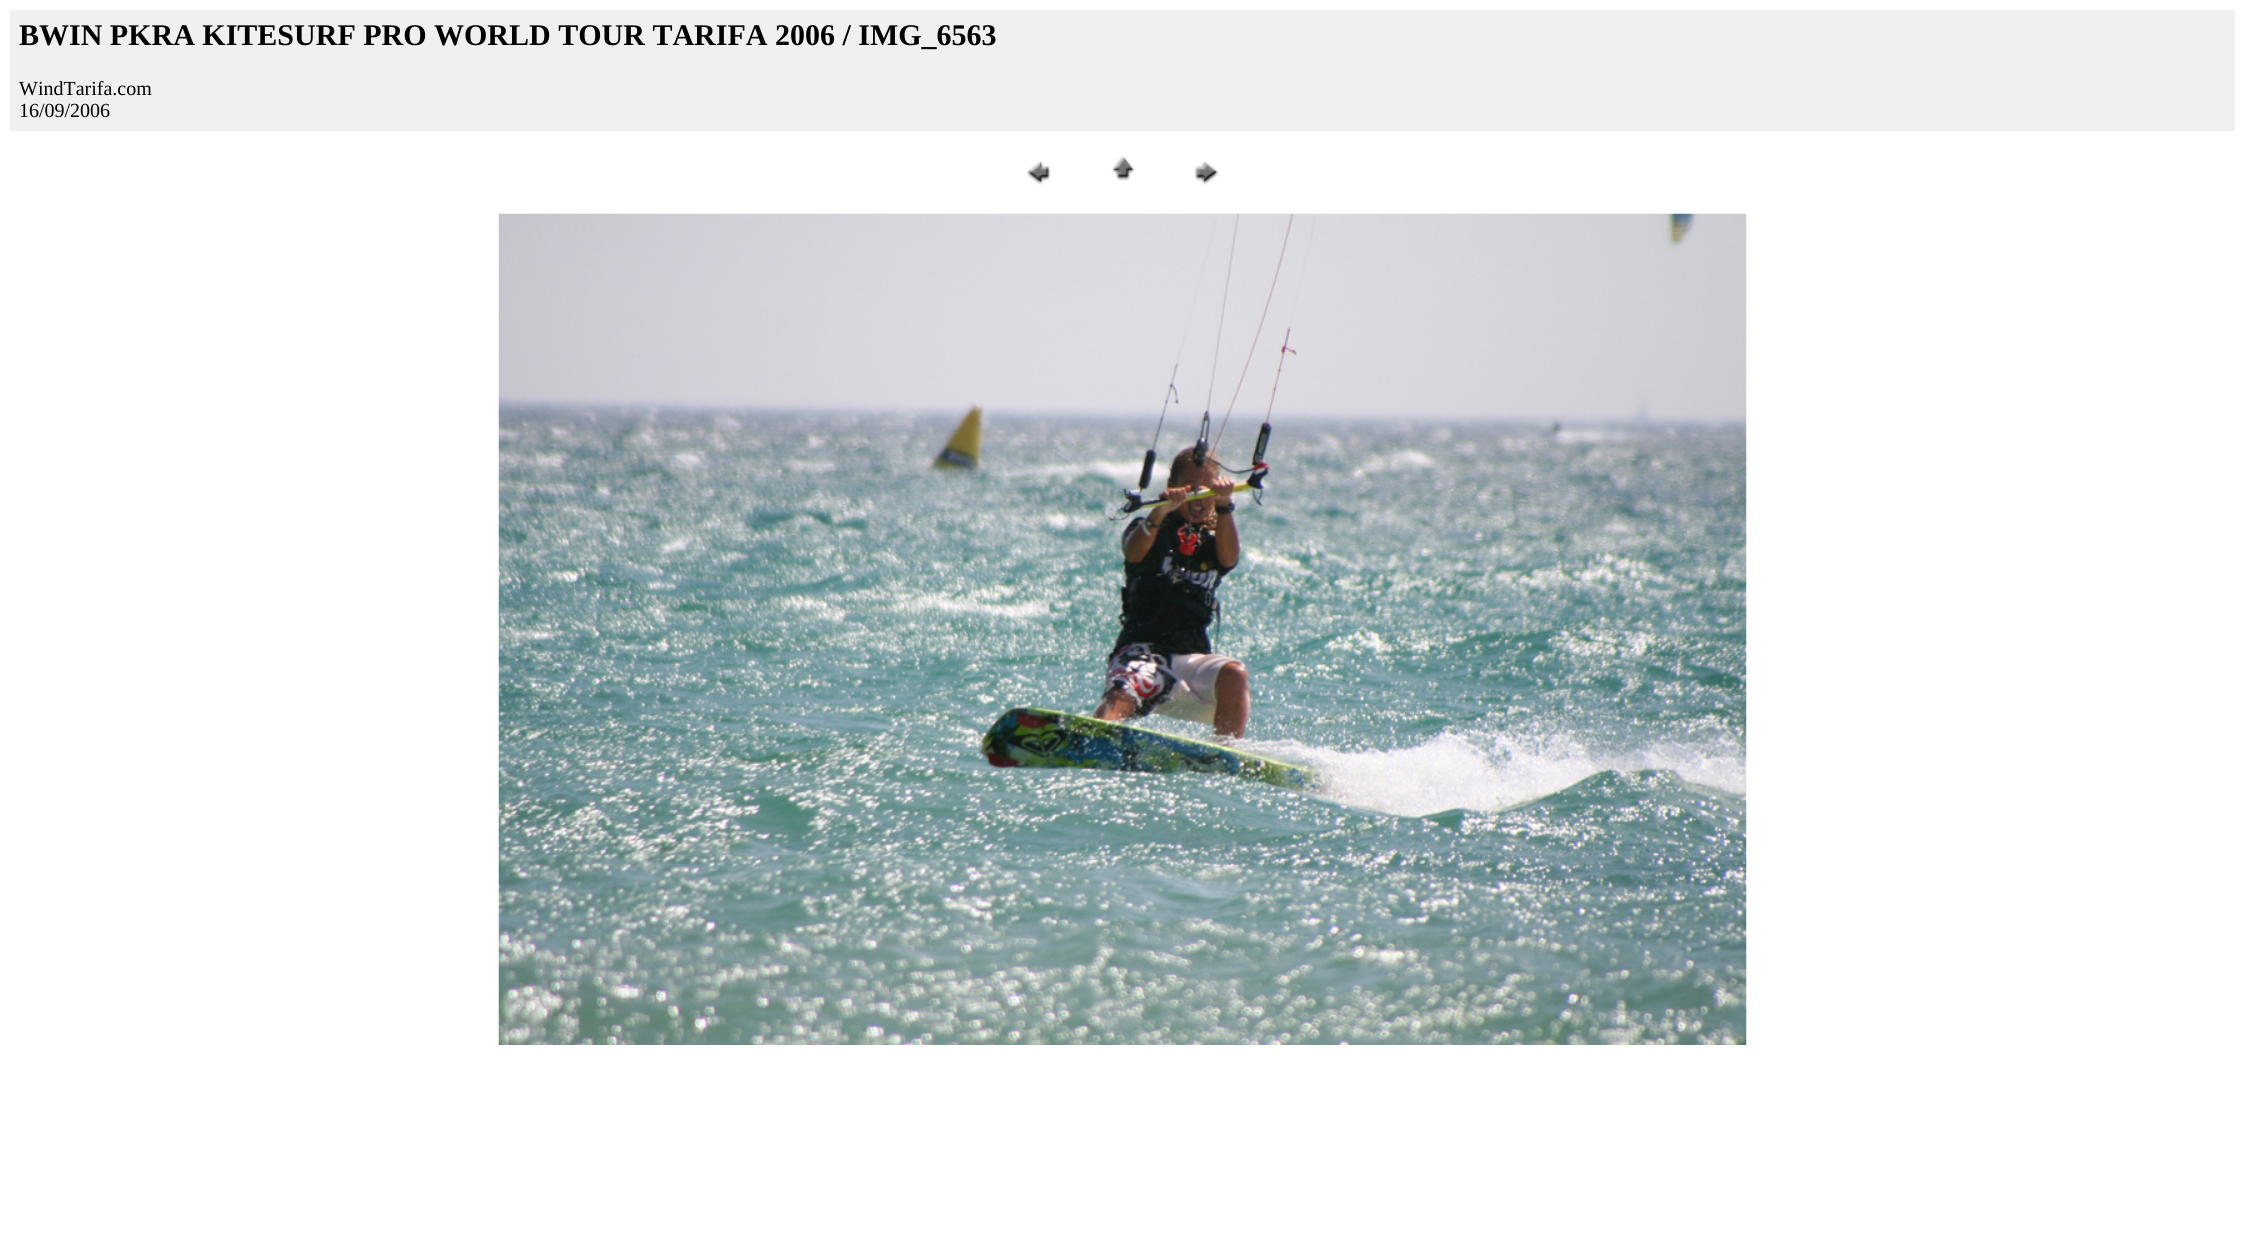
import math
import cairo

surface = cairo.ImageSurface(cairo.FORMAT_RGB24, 2245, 1236)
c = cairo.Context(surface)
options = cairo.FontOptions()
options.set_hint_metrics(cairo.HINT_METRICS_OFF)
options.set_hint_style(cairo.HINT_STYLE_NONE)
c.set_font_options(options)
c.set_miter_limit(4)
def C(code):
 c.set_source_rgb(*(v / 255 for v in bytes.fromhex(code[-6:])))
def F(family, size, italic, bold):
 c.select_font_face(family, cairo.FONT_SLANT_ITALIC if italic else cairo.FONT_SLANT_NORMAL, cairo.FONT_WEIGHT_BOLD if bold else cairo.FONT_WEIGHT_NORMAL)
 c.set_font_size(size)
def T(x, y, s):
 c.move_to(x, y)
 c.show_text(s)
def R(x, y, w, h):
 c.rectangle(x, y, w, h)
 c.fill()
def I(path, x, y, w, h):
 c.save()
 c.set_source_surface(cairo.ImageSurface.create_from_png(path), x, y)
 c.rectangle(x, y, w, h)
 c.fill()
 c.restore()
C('ffffff')
c.paint()
C('f0f0f0')
R(10,10,2225,121)
F('Liberation Serif',30,0,1)
C('000000')
T(19,45,'BWIN PKRA KITESURF PRO WORLD TOUR TARIFA 2006 / IMG_6563')
F('Liberation Serif',20,0,0)
T(19,95,'WindTarifa.com')
T(19,117,'16/09/2006')
I('1.png',1026,161,25,24)
I('2.png',1111,156,24,25)
I('3.png',1194,161,25,24)
I('4.png',498,213,1249,832)
surface.write_to_png('o.png')
